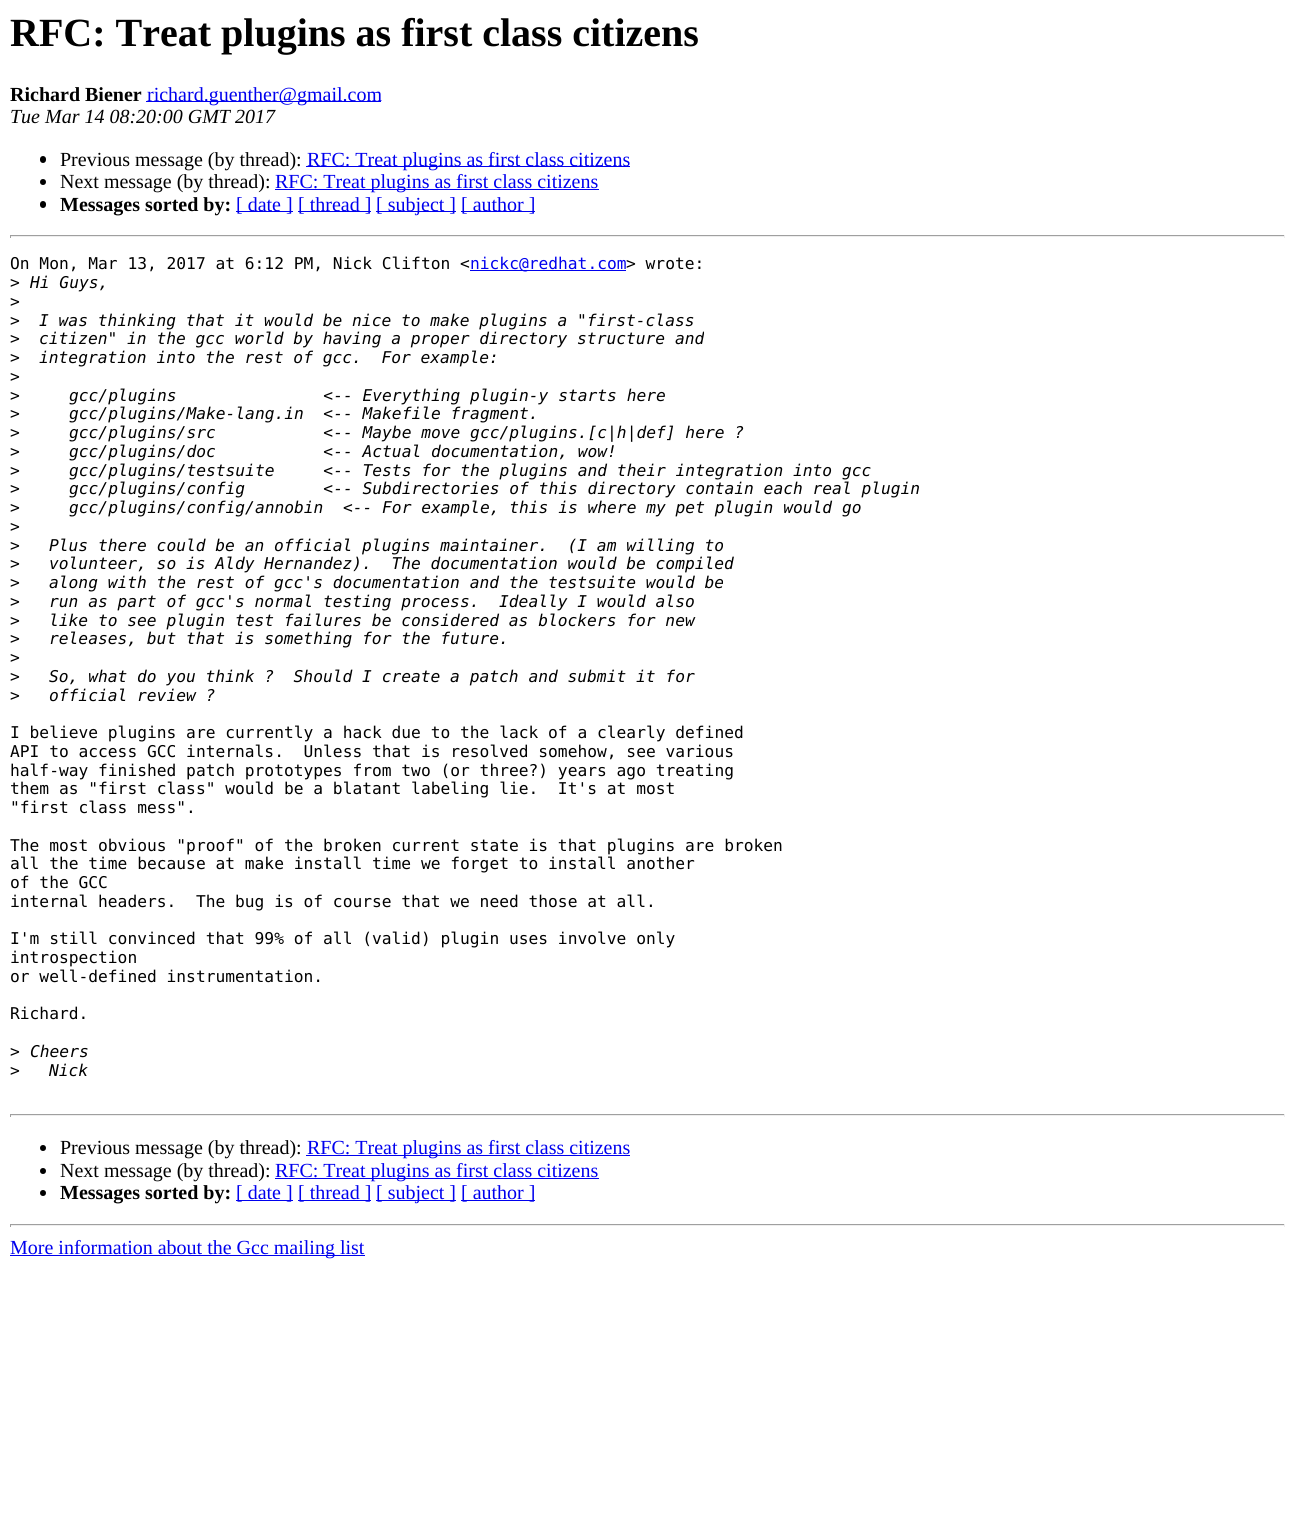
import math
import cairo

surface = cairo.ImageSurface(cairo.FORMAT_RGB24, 1294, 1535)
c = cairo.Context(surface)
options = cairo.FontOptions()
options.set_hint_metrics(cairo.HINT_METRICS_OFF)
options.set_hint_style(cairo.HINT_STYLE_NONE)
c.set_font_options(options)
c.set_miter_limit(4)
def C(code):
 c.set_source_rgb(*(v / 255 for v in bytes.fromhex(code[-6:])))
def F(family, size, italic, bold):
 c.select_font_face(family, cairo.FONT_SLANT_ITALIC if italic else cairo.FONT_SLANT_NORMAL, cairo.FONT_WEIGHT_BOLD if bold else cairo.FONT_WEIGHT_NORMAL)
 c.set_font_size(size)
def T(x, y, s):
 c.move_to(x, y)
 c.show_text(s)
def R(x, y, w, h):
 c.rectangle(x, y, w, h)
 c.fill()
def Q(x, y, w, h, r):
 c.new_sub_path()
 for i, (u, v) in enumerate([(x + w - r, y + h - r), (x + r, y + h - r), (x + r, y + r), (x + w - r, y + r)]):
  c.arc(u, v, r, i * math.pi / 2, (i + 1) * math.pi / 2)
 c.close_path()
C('ffffff')
c.paint()
F('Liberation Serif',40,0,1)
C('000000')
T(10,46,'RFC: Treat plugins as first class citizens')
F('Liberation Serif',20,0,1)
T(10,101,'Richard Biener')
C('0000ee')
R(146,101,235,1)
F('Liberation Serif',20,0,0)
T(147,101,'richard.guenther@gmail.com')
F('Liberation Serif',20,1,0)
C('000000')
T(10,123,'Tue Mar 14 08:20:00 GMT 2017')
Q(40,156,6,7,3)
c.fill()
F('Liberation Serif',20,0,0)
T(60,166,'Previous message (by thread):')
C('0000ee')
R(306,166,324,1)
T(307,166,'RFC: Treat plugins as first class citizens')
C('000000')
c.new_path()
c.arc(43,182,3,0,2 * math.pi)
c.fill()
T(60,188,'Next message (by thread):')
C('0000ee')
R(275,189,324,1)
T(275,188,'RFC: Treat plugins as first class citizens')
C('000000')
Q(40,201,6,7,3)
c.fill()
F('Liberation Serif',20,0,1)
T(60,211,'Messages sorted by:')
C('0000ee')
R(236,211,57,1)
F('Liberation Serif',20,0,0)
T(236,211,'[ date ]')
R(298,211,73,1)
T(298,211,'[ thread ]')
R(376,211,80,1)
T(376,211,'[ subject ]')
R(461,211,74,1)
T(461,211,'[ author ]')
C('9f9f9f')
R(10,235,1275,1)
C('eeeeee')
R(1284,235,1,3)
R(10,236,1275,1)
C('9f9f9f')
R(10,235,1,3)
F('DejaVu Sans Mono',16.25,0,0)
C('000000')
T(10,269,'On Mon, Mar 13, 2017 at 6:12 PM, Nick Clifton <')
C('0000ee')
R(470,270,156,1)
T(470,269,'nickc@redhat.com')
C('000000')
T(626,269,'> wrote:')
T(10,288,'>')
F('DejaVu Sans Mono',16.25,1,0)
T(30,288,'Hi Guys,')
F('DejaVu Sans Mono',16.25,0,0)
T(10,307,'>')
T(10,326,'>')
F('DejaVu Sans Mono',16.25,1,0)
T(39,326,'I was thinking that it would be nice to make plugins a "first-class')
F('DejaVu Sans Mono',16.25,0,0)
T(10,344,'>')
F('DejaVu Sans Mono',16.25,1,0)
T(39,344,'citizen" in the gcc world by having a proper directory structure and')
F('DejaVu Sans Mono',16.25,0,0)
T(10,363,'>')
F('DejaVu Sans Mono',16.25,1,0)
T(39,363,'integration into the rest of gcc.  For example:')
F('DejaVu Sans Mono',16.25,0,0)
T(10,382,'>')
T(10,401,'>')
F('DejaVu Sans Mono',16.25,1,0)
T(69,401,'gcc/plugins               <-- Everything plugin-y starts here')
F('DejaVu Sans Mono',16.25,0,0)
T(10,419,'>')
F('DejaVu Sans Mono',16.25,1,0)
T(69,419,'gcc/plugins/Make-lang.in  <-- Makefile fragment.')
F('DejaVu Sans Mono',16.25,0,0)
T(10,438,'>')
F('DejaVu Sans Mono',16.25,1,0)
T(69,438,'gcc/plugins/src           <-- Maybe move gcc/plugins.[c|h|def] here ?')
F('DejaVu Sans Mono',16.25,0,0)
T(10,457,'>')
F('DejaVu Sans Mono',16.25,1,0)
T(69,457,'gcc/plugins/doc           <-- Actual documentation, wow!')
F('DejaVu Sans Mono',16.25,0,0)
T(10,476,'>')
F('DejaVu Sans Mono',16.25,1,0)
T(69,476,'gcc/plugins/testsuite     <-- Tests for the plugins and their integration into gcc')
F('DejaVu Sans Mono',16.25,0,0)
T(10,494,'>')
F('DejaVu Sans Mono',16.25,1,0)
T(69,494,'gcc/plugins/config        <-- Subdirectories of this directory contain each real plugin')
F('DejaVu Sans Mono',16.25,0,0)
T(10,513,'>')
F('DejaVu Sans Mono',16.25,1,0)
T(69,513,'gcc/plugins/config/annobin  <-- For example, this is where my pet plugin would go')
F('DejaVu Sans Mono',16.25,0,0)
T(10,532,'>')
T(10,551,'>')
F('DejaVu Sans Mono',16.25,1,0)
T(49,551,'Plus there could be an official plugins maintainer.  (I am willing to')
F('DejaVu Sans Mono',16.25,0,0)
T(10,569,'>')
F('DejaVu Sans Mono',16.25,1,0)
T(49,569,'volunteer, so is Aldy Hernandez).  The documentation would be compiled')
F('DejaVu Sans Mono',16.25,0,0)
T(10,588,'>')
F('DejaVu Sans Mono',16.25,1,0)
T(49,588,'along with the rest of gcc\'s documentation and the testsuite would be')
F('DejaVu Sans Mono',16.25,0,0)
T(10,607,'>')
F('DejaVu Sans Mono',16.25,1,0)
T(49,607,'run as part of gcc\'s normal testing process.  Ideally I would also')
F('DejaVu Sans Mono',16.25,0,0)
T(10,626,'>')
F('DejaVu Sans Mono',16.25,1,0)
T(49,626,'like to see plugin test failures be considered as blockers for new')
F('DejaVu Sans Mono',16.25,0,0)
T(10,644,'>')
F('DejaVu Sans Mono',16.25,1,0)
T(49,644,'releases, but that is something for the future.')
F('DejaVu Sans Mono',16.25,0,0)
T(10,663,'>')
T(10,682,'>')
F('DejaVu Sans Mono',16.25,1,0)
T(49,682,'So, what do you think ?  Should I create a patch and submit it for')
F('DejaVu Sans Mono',16.25,0,0)
T(10,701,'>')
F('DejaVu Sans Mono',16.25,1,0)
T(49,701,'official review ?')
F('DejaVu Sans Mono',16.25,0,0)
T(10,738,'I believe plugins are currently a hack due to the lack of a clearly defined')
T(10,757,'API to access GCC internals.  Unless that is resolved somehow, see various')
T(10,776,'half-way finished patch prototypes from two (or three?) years ago treating')
T(10,794,'them as "first class" would be a blatant labeling lie.  It\'s at most')
T(10,813,'"first class mess".')
T(10,851,'The most obvious "proof" of the broken current state is that plugins are broken')
T(10,869,'all the time because at make install time we forget to install another')
T(10,888,'of the GCC')
T(10,907,'internal headers.  The bug is of course that we need those at all.')
T(10,944,'I\'m still convinced that 99% of all (valid) plugin uses involve only')
T(10,963,'introspection')
T(10,982,'or well-defined instrumentation.')
T(10,1019,'Richard.')
T(10,1057,'>')
F('DejaVu Sans Mono',16.25,1,0)
T(30,1057,'Cheers')
F('DejaVu Sans Mono',16.25,0,0)
T(10,1076,'>')
F('DejaVu Sans Mono',16.25,1,0)
T(49,1076,'Nick')
C('9f9f9f')
R(10,1114,1275,1)
C('eeeeee')
R(1284,1114,1,3)
R(10,1115,1275,1)
C('9f9f9f')
R(10,1114,1,3)
C('000000')
c.new_path()
c.arc(43,1148,3,0,2 * math.pi)
c.fill()
F('Liberation Serif',20,0,0)
T(60,1154,'Previous message (by thread):')
C('0000ee')
R(306,1155,324,1)
T(307,1154,'RFC: Treat plugins as first class citizens')
C('000000')
c.new_path()
c.arc(43,1171,3,0,2 * math.pi)
c.fill()
T(60,1177,'Next message (by thread):')
C('0000ee')
R(275,1178,324,1)
T(275,1177,'RFC: Treat plugins as first class citizens')
C('000000')
c.new_path()
c.arc(43,1193,3,0,2 * math.pi)
c.fill()
F('Liberation Serif',20,0,1)
T(60,1199,'Messages sorted by:')
C('0000ee')
R(236,1200,57,1)
F('Liberation Serif',20,0,0)
T(236,1199,'[ date ]')
R(298,1200,73,1)
T(298,1199,'[ thread ]')
R(376,1200,80,1)
T(376,1199,'[ subject ]')
R(461,1200,74,1)
T(461,1199,'[ author ]')
C('9f9f9f')
R(10,1224,1275,1)
C('eeeeee')
R(1284,1224,1,3)
R(10,1225,1275,1)
C('9f9f9f')
R(10,1224,1,3)
C('0000ee')
R(10,1255,355,1)
T(10,1254,'More information about the Gcc mailing list')
surface.write_to_png('o.png')
